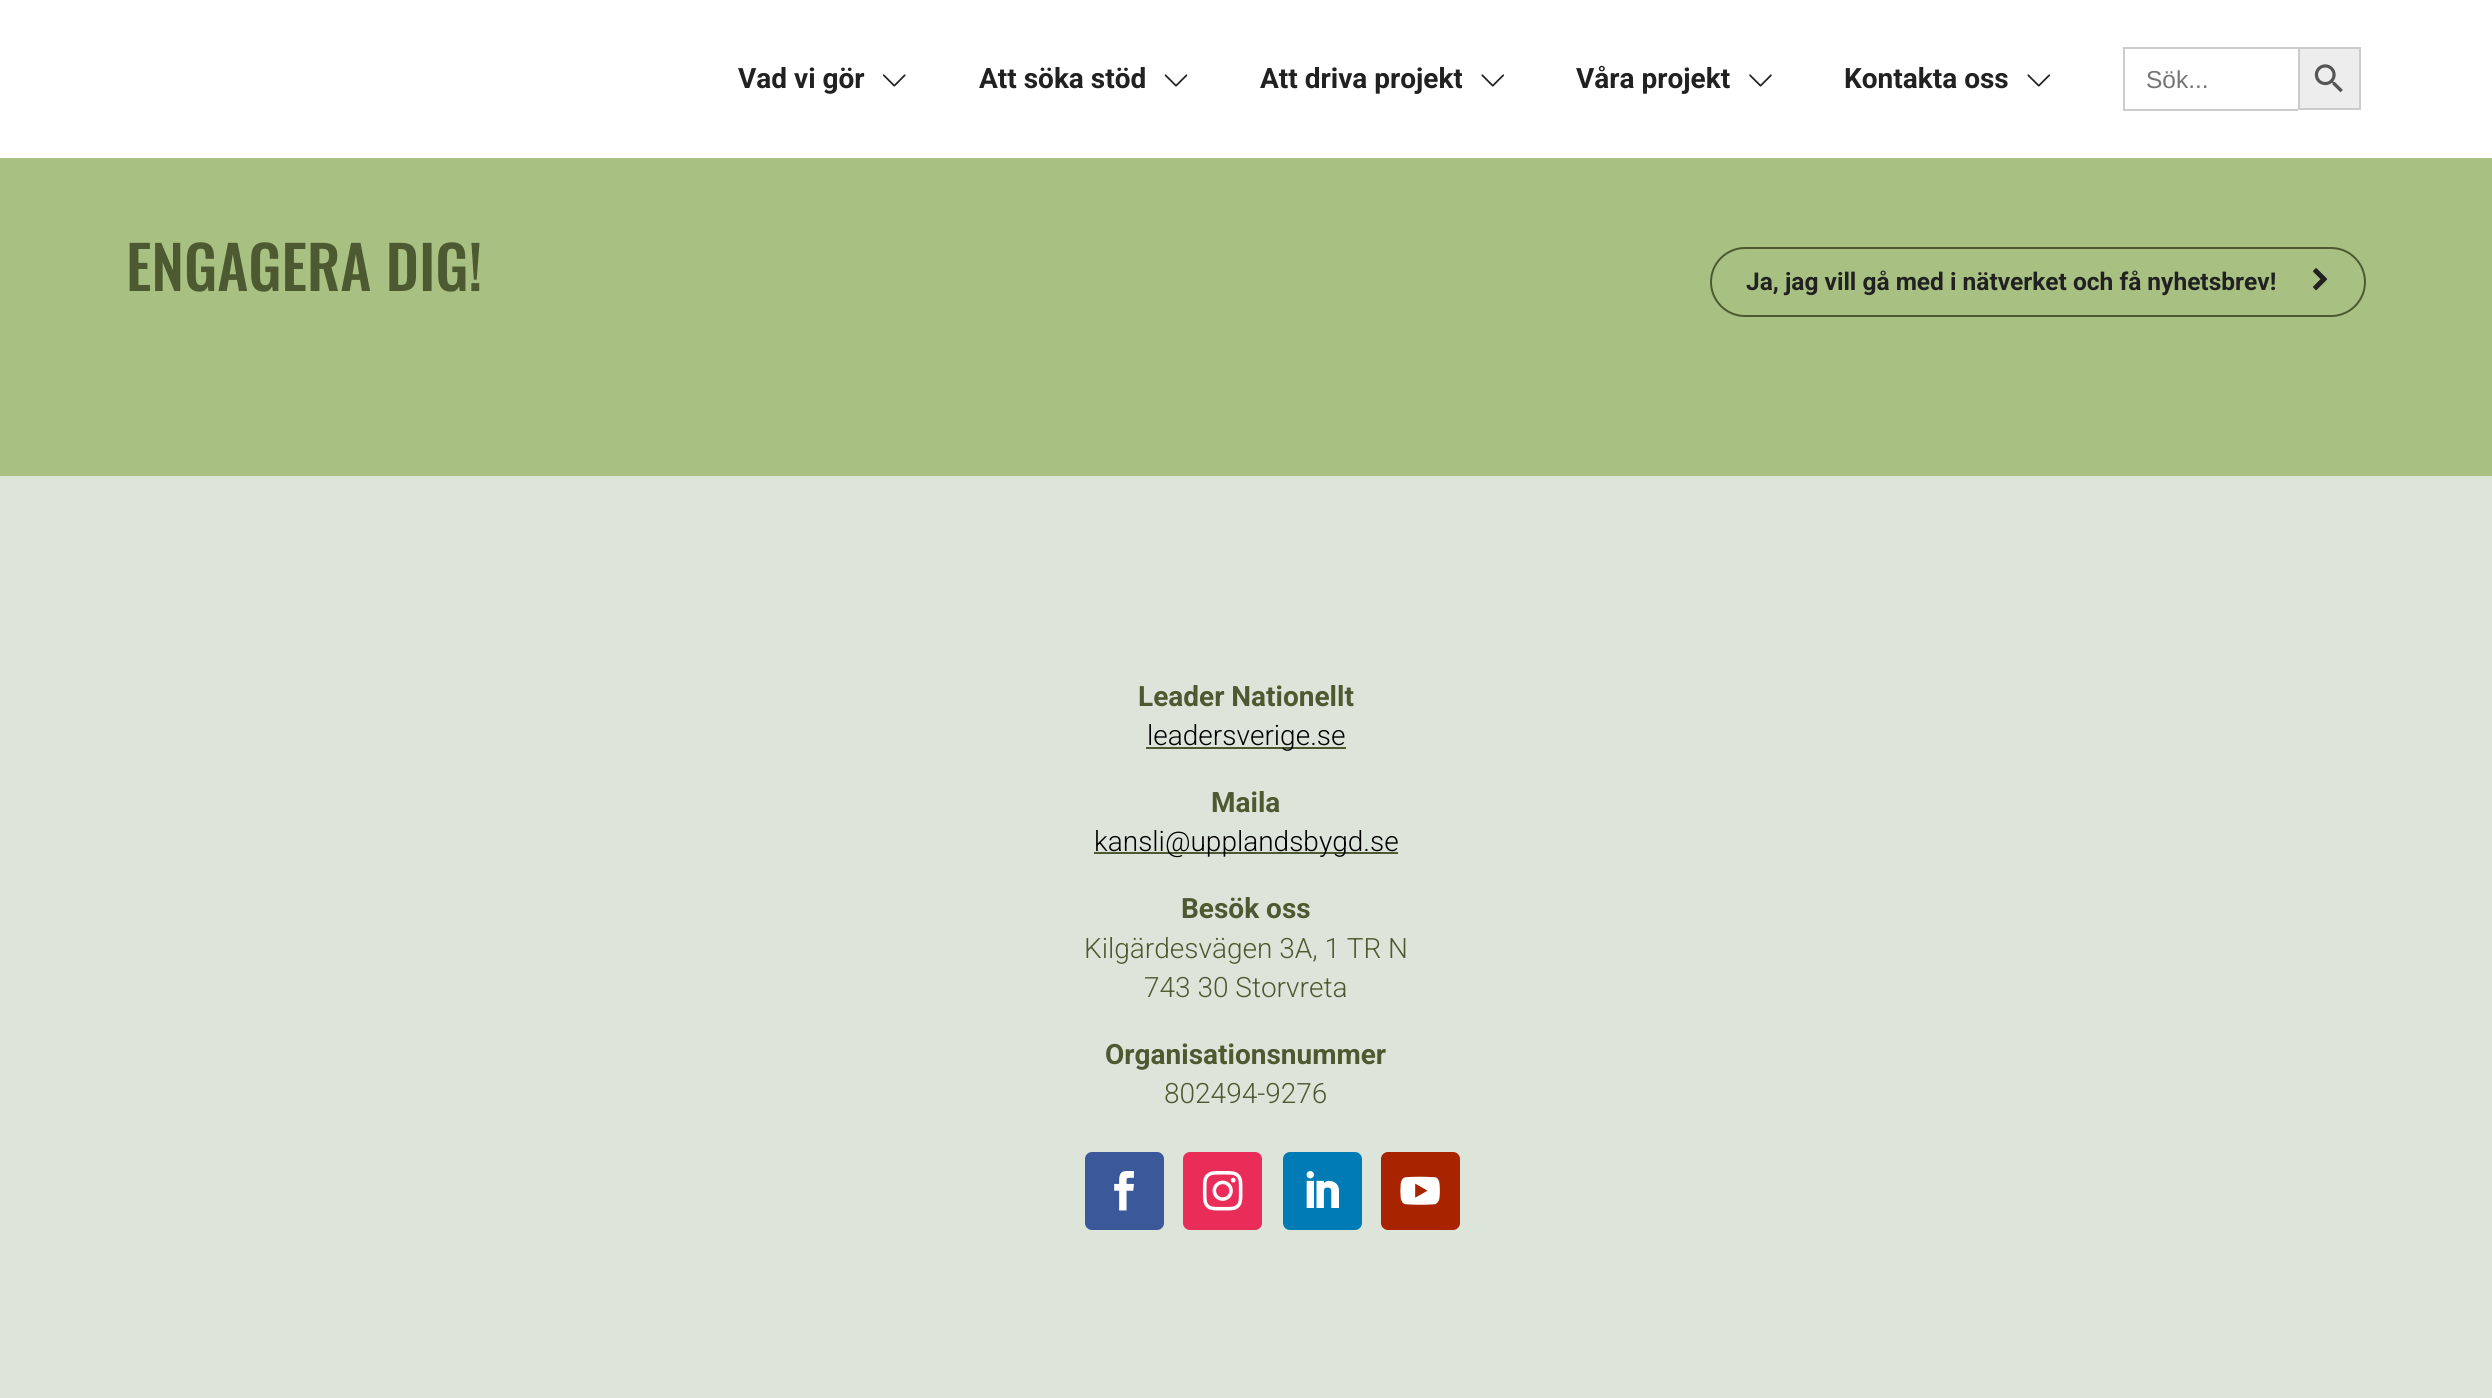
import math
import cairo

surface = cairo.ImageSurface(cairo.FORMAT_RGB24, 2492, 1398)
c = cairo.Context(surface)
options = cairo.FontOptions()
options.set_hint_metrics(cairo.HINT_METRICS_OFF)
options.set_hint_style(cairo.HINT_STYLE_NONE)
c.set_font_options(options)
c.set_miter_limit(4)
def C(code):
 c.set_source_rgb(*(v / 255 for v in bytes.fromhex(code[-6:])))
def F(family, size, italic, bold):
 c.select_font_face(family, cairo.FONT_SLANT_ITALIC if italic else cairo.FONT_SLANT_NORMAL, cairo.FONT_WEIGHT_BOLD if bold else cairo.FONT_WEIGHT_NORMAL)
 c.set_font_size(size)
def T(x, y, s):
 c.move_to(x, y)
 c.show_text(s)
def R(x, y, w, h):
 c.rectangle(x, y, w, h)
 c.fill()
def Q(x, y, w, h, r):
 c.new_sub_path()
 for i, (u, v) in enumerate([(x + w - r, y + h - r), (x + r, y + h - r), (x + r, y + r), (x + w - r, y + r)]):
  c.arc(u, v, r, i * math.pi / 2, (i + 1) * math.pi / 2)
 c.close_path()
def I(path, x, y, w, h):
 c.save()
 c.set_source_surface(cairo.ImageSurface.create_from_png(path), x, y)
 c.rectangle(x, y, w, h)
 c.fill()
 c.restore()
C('ffffff')
c.paint()
F('Roboto',28,0,1)
C('212121')
T(738,88,'Vad vi gör')
I('1.png',882,74,24,13)
T(979,88,'Att söka stöd')
I('2.png',1164,74,24,13)
T(1260,88,'Att driva projekt')
I('3.png',1481,74,24,13)
T(1576,88,'Våra projekt')
I('4.png',1749,74,23,13)
T(1844,88,'Kontakta oss')
I('3.png',2027,74,24,13)
C('cccccc')
R(2123,47,175,2)
R(2123,109,175,2)
R(2123,47,2,63)
F('Liberation Sans',24.5,0,0)
C('757575')
T(2146,88,'Sök...')
C('ededed')
c.rectangle(2299,48,61,61)
c.fill_preserve()
C('cccccc')
c.stroke()
I('5.png',2314,64,29,29)
C('a8c082')
R(0,158,2492,318)
F('Oswald Medium',59.5,0,0)
C('4d5a31')
T(126,291,'ENGAGERA DIG!')
Q(1711,248,654,68,34)
c.stroke()
F('Roboto',24.5,0,1)
C('212121')
T(1746,290,'Ja, jag vill gå med i nätverket och få nyhetsbrev!')
I('6.png',2313,268,15,23)
C('dde5da')
R(0,476,2492,922)
F('Roboto',28,0,1)
C('4d5a31')
T(1138,706,'Leader Nationellt')
R(1146,747,200,2)
F('Roboto Light',28,0,0)
C('000000')
T(1147,745,'leadersverige.se')
F('Roboto',28,0,1)
C('4d5a31')
T(1211,812,'Maila')
R(1094,852,304,2)
F('Roboto Light',28,0,0)
C('000000')
T(1094,851,'kansli@upplandsbygd.se')
F('Roboto',28,0,1)
C('4d5a31')
T(1181,918,'Besök oss')
F('Roboto Light',28,0,0)
T(1084,958,'Kilgärdesvägen 3A, 1 TR N')
T(1144,997,'743 30 Storvreta')
F('Roboto',28,0,1)
T(1105,1064,'Organisationsnummer')
F('Roboto Light',28,0,0)
T(1164,1103,'802494-9276')
C('3b5998')
Q(1085,1152,79,78,7)
c.fill()
I('7.png',1114,1171,20,40)
C('ea2c59')
Q(1183,1152,79,78,7)
c.fill()
I('8.png',1202,1171,41,40)
C('007bb6')
Q(1283,1152,79,78,7)
c.fill()
I('9.png',1306,1171,33,37)
C('a82400')
Q(1381,1152,79,78,7)
c.fill()
I('10.png',1400,1176,40,29)
surface.write_to_png('o.png')
